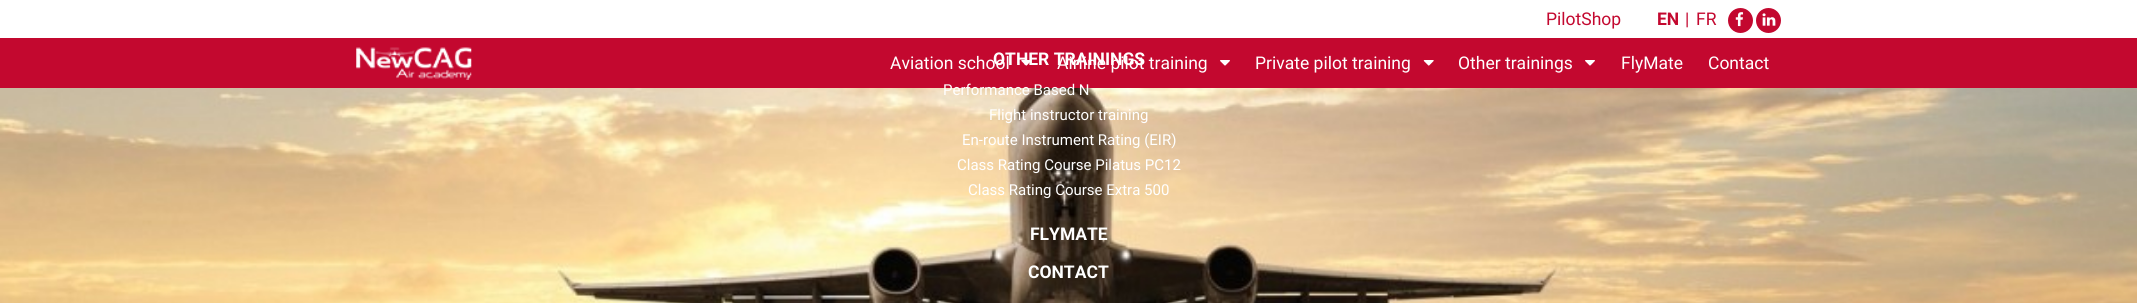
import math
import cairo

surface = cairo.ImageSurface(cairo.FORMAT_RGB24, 2137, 303)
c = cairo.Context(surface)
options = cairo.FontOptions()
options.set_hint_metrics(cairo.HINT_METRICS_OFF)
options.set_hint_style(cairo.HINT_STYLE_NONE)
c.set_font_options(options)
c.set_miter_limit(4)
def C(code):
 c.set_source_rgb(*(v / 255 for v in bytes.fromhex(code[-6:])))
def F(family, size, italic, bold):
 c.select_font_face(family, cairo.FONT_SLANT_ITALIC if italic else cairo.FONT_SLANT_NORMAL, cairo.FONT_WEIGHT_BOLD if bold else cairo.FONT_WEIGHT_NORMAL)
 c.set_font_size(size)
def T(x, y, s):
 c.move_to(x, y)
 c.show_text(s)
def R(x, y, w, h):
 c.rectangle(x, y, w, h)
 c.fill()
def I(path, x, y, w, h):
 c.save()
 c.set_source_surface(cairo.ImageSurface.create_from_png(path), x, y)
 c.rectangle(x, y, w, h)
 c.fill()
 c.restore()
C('ffffff')
c.paint()
F('Roboto',17.5,0,0)
C('c3082f')
T(1546,25,'PilotShop')
F('Roboto',17.5,0,1)
T(1657,25,'EN')
F('Roboto',17.5,0,0)
T(1685,25,'|')
T(1696,25,'FR')
c.new_path()
c.arc(1740.5,20.5,12.5,0,2 * math.pi)
c.fill()
I('1.png',1735,12,9,15)
c.arc(1768.5,20.5,12.5,0,2 * math.pi)
c.fill()
I('2.png',1762,13,14,13)
R(0,38,2137,50)
C('ffffff')
T(890,69,'Aviation school')
I('4.png',1021,60,11,6)
T(1057,69,'Airline pilot training')
F('Roboto',17.5,0,1)
T(993,65,'OTHER TRAININGS')
I('7.png',0,88,2137,215)
F('Roboto',15,0,0)
T(943,95,'Performance Based N')
T(989,120,'Flight instructor training')
T(962,145,'En-route Instrument Rating (EIR)')
T(957,170,'Class Rating Course Pilatus PC12')
T(968,195,'Class Rating Course Extra 500')
F('Roboto',17.5,0,1)
T(1030,240,'FLYMATE')
T(1028,278,'CONTACT')
I('3.png',356,47,116,33)
I('5.png',1220,60,10,6)
F('Roboto',17.5,0,0)
T(1255,69,'Private pilot training')
I('6.png',1423,60,11,6)
T(1458,69,'Other trainings')
I('5.png',1585,60,10,6)
T(1621,69,'FlyMate')
T(1708,69,'Contact')
surface.write_to_png('o.png')
